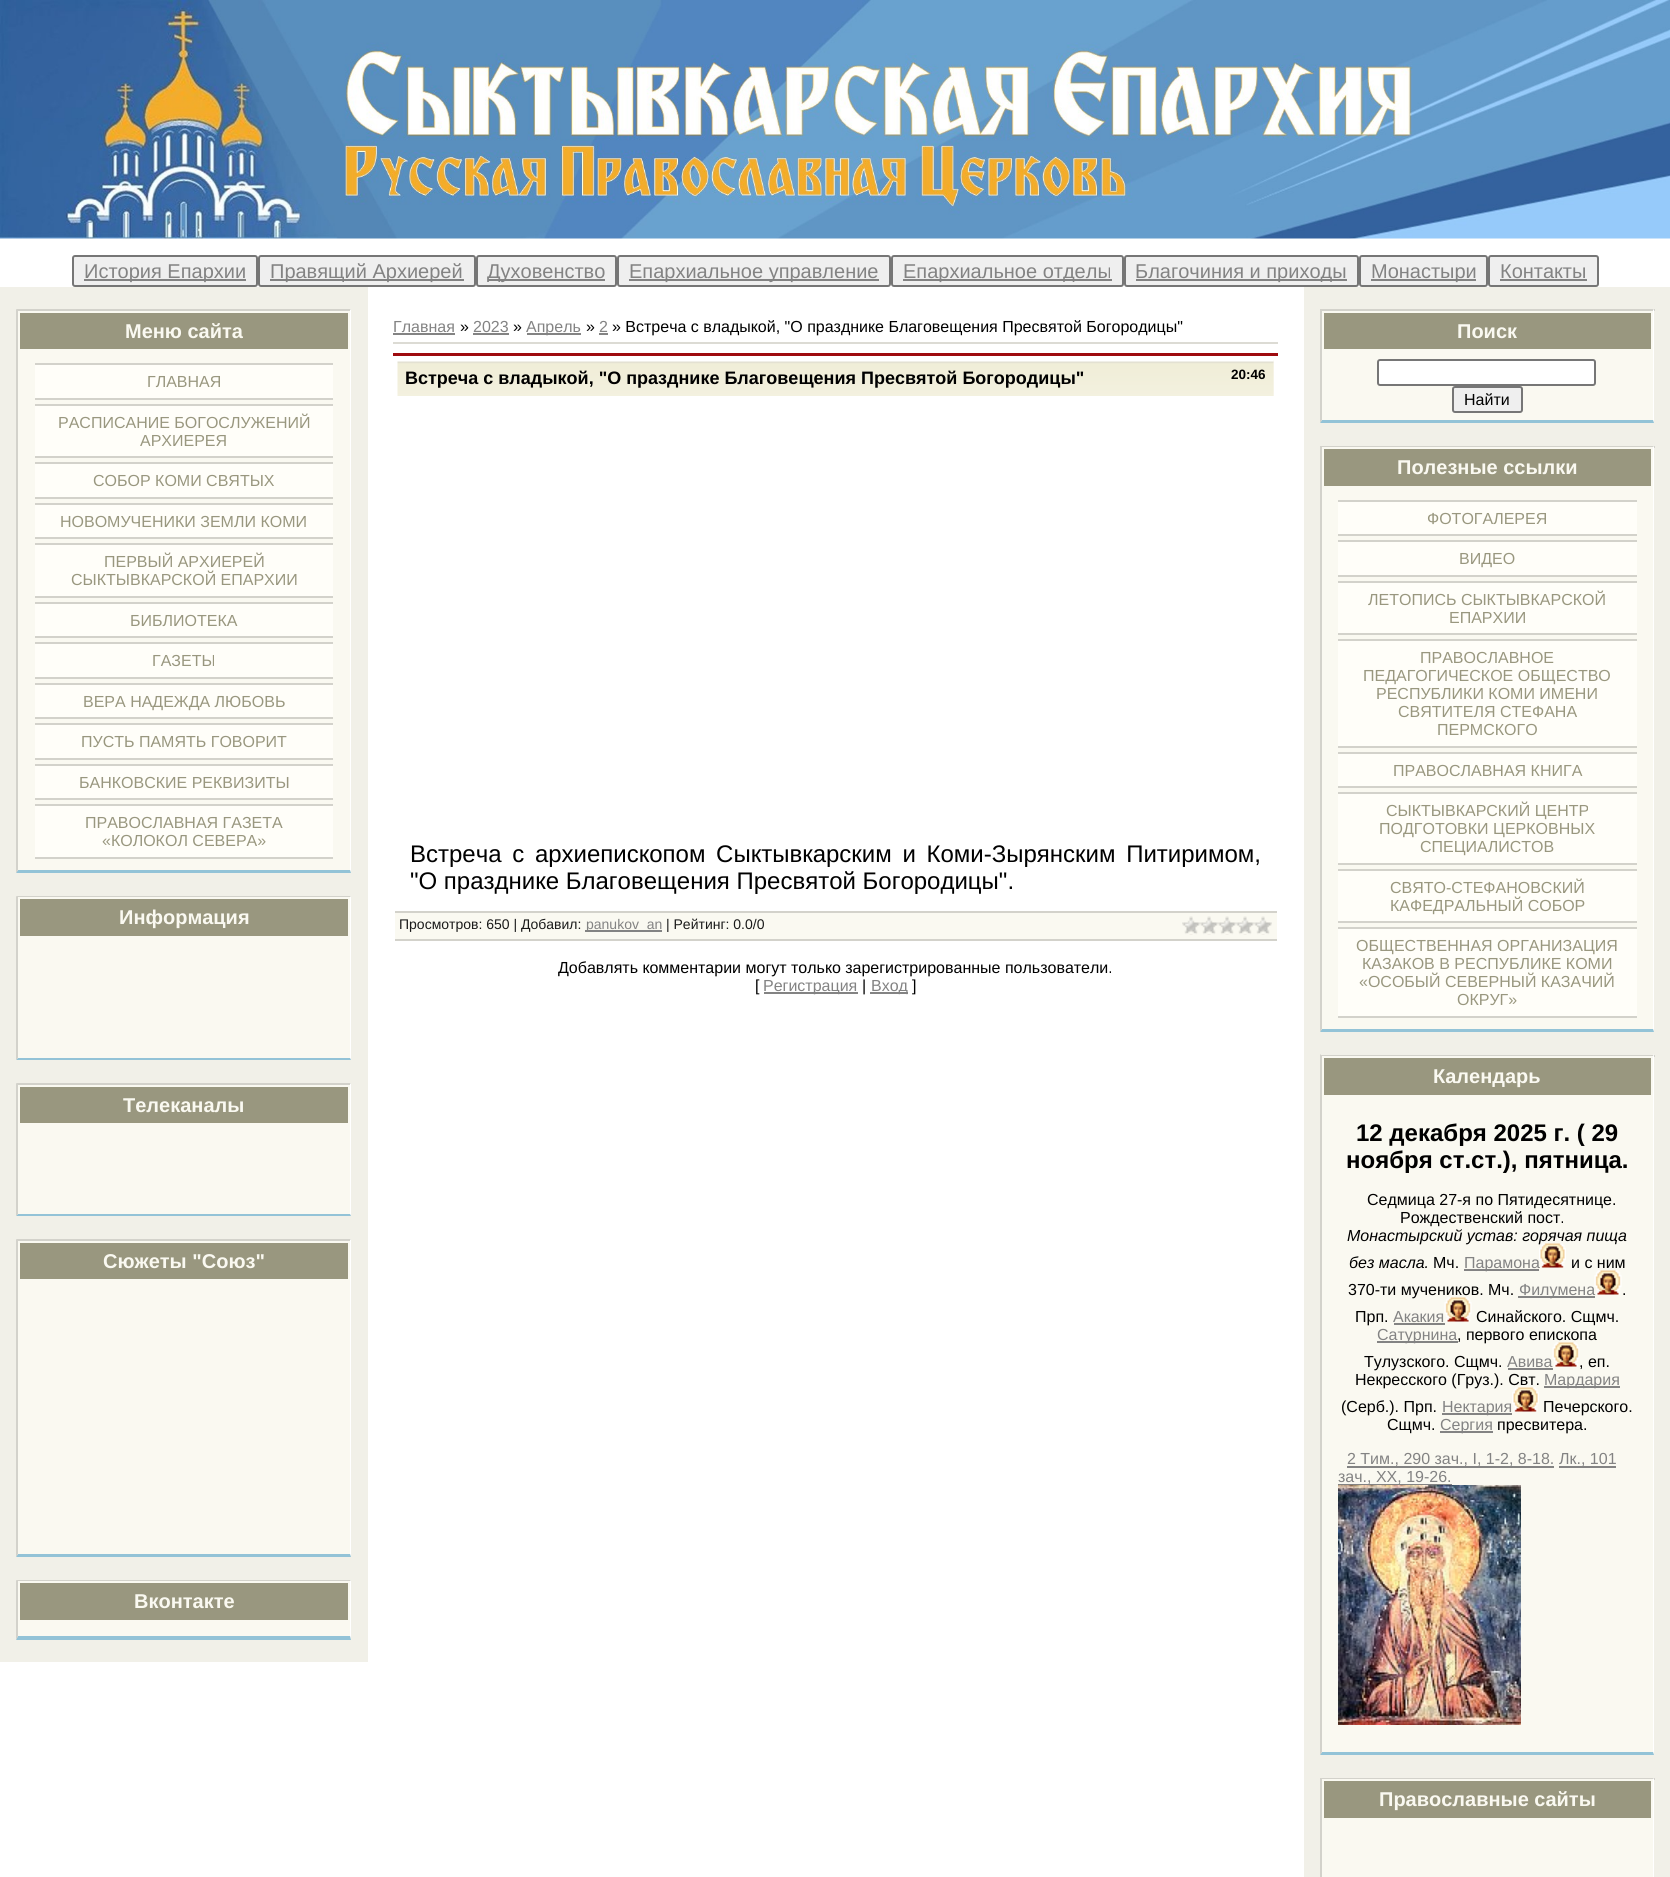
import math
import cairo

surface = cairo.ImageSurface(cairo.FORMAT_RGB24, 1670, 1877)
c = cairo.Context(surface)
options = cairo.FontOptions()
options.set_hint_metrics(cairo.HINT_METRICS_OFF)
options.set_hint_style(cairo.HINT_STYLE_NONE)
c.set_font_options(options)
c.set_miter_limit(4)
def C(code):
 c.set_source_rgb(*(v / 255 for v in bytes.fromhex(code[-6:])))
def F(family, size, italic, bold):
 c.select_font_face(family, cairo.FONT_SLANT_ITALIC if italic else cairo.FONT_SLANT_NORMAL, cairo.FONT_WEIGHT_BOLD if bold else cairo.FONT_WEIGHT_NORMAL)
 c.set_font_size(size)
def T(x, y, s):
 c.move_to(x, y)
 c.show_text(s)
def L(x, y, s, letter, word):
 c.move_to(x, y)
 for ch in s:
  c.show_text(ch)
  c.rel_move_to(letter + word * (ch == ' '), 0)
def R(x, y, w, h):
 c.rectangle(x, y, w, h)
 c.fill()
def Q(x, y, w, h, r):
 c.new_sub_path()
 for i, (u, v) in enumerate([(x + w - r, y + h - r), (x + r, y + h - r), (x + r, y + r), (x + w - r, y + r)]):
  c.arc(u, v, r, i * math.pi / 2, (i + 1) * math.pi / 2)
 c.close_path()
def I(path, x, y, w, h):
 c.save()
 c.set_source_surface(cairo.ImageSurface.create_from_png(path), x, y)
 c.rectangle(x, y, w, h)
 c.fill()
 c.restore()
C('ffffff')
c.paint()
I('1.png',0,0,1670,239)
C('efefef')
Q(73,256,184,30,2)
c.fill_preserve()
C('767676')
c.stroke()
C('838383')
R(84,279,162,2)
F('Liberation Sans',20,0,0)
T(84,278,'История Епархии')
C('efefef')
Q(259,256,216,30,2)
c.fill_preserve()
C('767676')
c.stroke()
C('838383')
R(270,279,194,2)
T(270,278,'Правящий Архиерей')
C('efefef')
Q(477,256,139,30,2)
c.fill_preserve()
C('767676')
c.stroke()
C('838383')
R(488,279,117,2)
T(487,278,'Духовенство')
C('efefef')
Q(618,256,272,30,2)
c.fill_preserve()
C('767676')
c.stroke()
C('838383')
R(629,279,250,2)
T(629,278,'Епархиальное управление')
C('efefef')
Q(892,256,231,30,2)
c.fill_preserve()
C('767676')
c.stroke()
C('838383')
R(903,279,209,2)
T(903,278,'Епархиальное отделы')
C('efefef')
Q(1125,256,233,30,2)
c.fill_preserve()
C('767676')
c.stroke()
C('838383')
R(1136,279,211,2)
T(1135,278,'Благочиния и приходы')
C('efefef')
Q(1360,256,127,30,2)
c.fill_preserve()
C('767676')
c.stroke()
C('838383')
R(1371,279,105,2)
T(1371,278,'Монастыри')
C('efefef')
Q(1489,256,109,30,2)
c.fill_preserve()
C('767676')
c.stroke()
C('838383')
T(1500,278,'Контакты')
R(1500,279,87,2)
C('f1f0e8')
R(0,287,368,1375)
C('faf9f1')
R(18,351,332,519)
C('d3d2cb')
R(17,309,334,2)
C('ffffff')
c.new_path()
c.move_to(351,309)
c.line_to(351,873)
c.line_to(350,870)
c.line_to(350,310)
c.close_path()
c.fill()
C('93c3d7')
c.new_path()
c.move_to(351,873)
c.line_to(16,873)
c.line_to(18,870)
c.line_to(350,870)
c.close_path()
c.fill()
C('d3d2cb')
c.new_path()
c.move_to(16,873)
c.line_to(16,309)
c.line_to(18,310)
c.line_to(18,870)
c.close_path()
c.fill()
C('99977f')
c.rectangle(19,312,330,38)
c.fill_preserve()
C('faf9f1')
c.stroke()
F('Liberation Sans',20,0,1)
T(125,338,'Меню сайта')
C('fffef9')
R(35,365,298,33)
C('d3d2cb')
R(35,363,298,2)
R(35,398,298,2)
F('Liberation Sans',16,0,0)
C('99977f')
T(147,387,'ГЛАВНАЯ')
C('fffef9')
R(35,406,298,50)
C('d3d2cb')
R(35,404,298,2)
R(35,456,298,2)
C('99977f')
T(58,428,'РАСПИСАНИЕ БОГОСЛУЖЕНИЙ')
T(140,446,'АРХИЕРЕЯ')
C('fffef9')
R(35,464,298,33)
C('d3d2cb')
R(35,462,298,2)
R(35,497,298,2)
C('99977f')
T(93,486,'СОБОР КОМИ СВЯТЫХ')
C('fffef9')
R(35,505,298,32)
C('d3d2cb')
R(35,503,298,2)
R(35,537,298,2)
C('99977f')
T(60,527,'НОВОМУЧЕНИКИ ЗЕМЛИ КОМИ')
C('fffef9')
R(35,545,298,51)
C('d3d2cb')
R(35,543,298,2)
R(35,596,298,2)
C('99977f')
T(104,567,'ПЕРВЫЙ АРХИЕРЕЙ')
T(71,585,'СЫКТЫВКАРСКОЙ ЕПАРХИИ')
C('fffef9')
R(35,604,298,32)
C('d3d2cb')
R(35,602,298,2)
R(35,636,298,2)
C('99977f')
T(130,626,'БИБЛИОТЕКА')
C('fffef9')
R(35,644,298,33)
C('d3d2cb')
R(35,642,298,2)
R(35,677,298,2)
C('99977f')
T(152,666,'ГАЗЕТЫ')
C('fffef9')
R(35,685,298,32)
C('d3d2cb')
R(35,683,298,2)
R(35,717,298,2)
C('99977f')
T(83,707,'ВЕРА НАДЕЖДА ЛЮБОВЬ')
C('fffef9')
R(35,725,298,33)
C('d3d2cb')
R(35,723,298,2)
R(35,758,298,2)
C('99977f')
T(81,747,'ПУСТЬ ПАМЯТЬ ГОВОРИТ')
C('fffef9')
R(35,766,298,32)
C('d3d2cb')
R(35,764,298,2)
R(35,798,298,2)
C('99977f')
T(79,788,'БАНКОВСКИЕ РЕКВИЗИТЫ')
C('fffef9')
R(35,806,298,51)
C('d3d2cb')
R(35,804,298,2)
R(35,857,298,2)
C('99977f')
T(85,828,'ПРАВОСЛАВНАЯ ГАЗЕТА')
T(102,846,'«КОЛОКОЛ СЕВЕРА»')
C('faf9f1')
R(18,938,332,120)
C('d3d2cb')
R(17,896,334,1)
C('ffffff')
c.new_path()
c.move_to(351,896)
c.line_to(351,1060)
c.line_to(350,1058)
c.line_to(350,897)
c.close_path()
c.fill()
C('93c3d7')
c.new_path()
c.move_to(351,1060)
c.line_to(16,1060)
c.line_to(18,1058)
c.line_to(350,1058)
c.close_path()
c.fill()
C('d3d2cb')
c.new_path()
c.move_to(16,1060)
c.line_to(16,896)
c.line_to(18,897)
c.line_to(18,1058)
c.close_path()
c.fill()
C('99977f')
c.rectangle(19,898,330,39)
c.fill_preserve()
C('faf9f1')
c.stroke()
F('Liberation Sans',20,0,1)
T(119,924,'Информация')
R(18,1125,332,89)
C('d3d2cb')
R(17,1083,334,2)
C('ffffff')
c.new_path()
c.move_to(351,1083)
c.line_to(351,1216)
c.line_to(350,1214)
c.line_to(350,1084)
c.close_path()
c.fill()
C('93c3d7')
c.new_path()
c.move_to(351,1216)
c.line_to(16,1216)
c.line_to(18,1214)
c.line_to(350,1214)
c.close_path()
c.fill()
C('d3d2cb')
c.new_path()
c.move_to(16,1216)
c.line_to(16,1083)
c.line_to(18,1084)
c.line_to(18,1214)
c.close_path()
c.fill()
C('99977f')
c.rectangle(19,1086,330,38)
c.fill_preserve()
C('faf9f1')
c.stroke()
T(123,1112,'Телеканалы')
R(18,1281,332,273)
C('d3d2cb')
R(17,1239,334,2)
C('ffffff')
c.new_path()
c.move_to(351,1239)
c.line_to(351,1557)
c.line_to(350,1554)
c.line_to(350,1240)
c.close_path()
c.fill()
C('93c3d7')
c.new_path()
c.move_to(351,1557)
c.line_to(16,1557)
c.line_to(18,1554)
c.line_to(350,1554)
c.close_path()
c.fill()
C('d3d2cb')
c.new_path()
c.move_to(16,1557)
c.line_to(16,1239)
c.line_to(18,1240)
c.line_to(18,1554)
c.close_path()
c.fill()
C('99977f')
c.rectangle(19,1242,330,38)
c.fill_preserve()
C('faf9f1')
c.stroke()
T(103,1268,'Cюжеты "Союз"')
R(18,1622,332,14)
C('d3d2cb')
R(17,1580,334,1)
C('ffffff')
c.new_path()
c.move_to(351,1580)
c.line_to(351,1640)
c.line_to(350,1636)
c.line_to(350,1581)
c.close_path()
c.fill()
C('93c3d7')
c.new_path()
c.move_to(351,1640)
c.line_to(16,1640)
c.line_to(18,1636)
c.line_to(350,1636)
c.close_path()
c.fill()
C('d3d2cb')
c.new_path()
c.move_to(16,1640)
c.line_to(16,1580)
c.line_to(18,1581)
c.line_to(18,1636)
c.close_path()
c.fill()
C('99977f')
c.rectangle(19,1582,330,39)
c.fill_preserve()
C('faf9f1')
c.stroke()
T(134,1608,'Вконтакте')
F('Liberation Sans',16,0,0)
C('838383')
T(393,332,'Главная')
R(393,333,62,2)
C('000000')
T(460,332,'»')
C('838383')
T(473,332,'2023')
R(473,333,36,2)
C('000000')
T(513,332,'»')
C('838383')
R(527,333,54,2)
T(526,332,'Апрель')
C('000000')
T(586,332,'»')
C('838383')
T(599,332,'2')
R(599,333,9,2)
C('000000')
T(612,332,'» Встреча с владыкой, "О празднике Благовещения Пресвятой Богородицы"')
C('dcdbd4')
R(393,342,885,2)
C('9e0b0f')
R(393,353,885,3)
C('faf9f1')
R(1273,360,1,36)
I('2.png',397,360,877,36)
F('Liberation Sans',18,0,1)
C('000000')
T(405,384,'Встреча с владыкой, "О празднике Благовещения Пресвятой Богородицы"')
F('Liberation Sans',13.5,0,1)
T(1231,379,'20:46')
F('Liberation Sans',24,0,0)
L(410,862,'Встреча с архиепископом Сыктывкарским и Коми-Зырянским Питиримом,',0,4)
T(410,889,'"О празднике Благовещения Пресвятой Богородицы".')
C('faf9f1')
R(395,913,882,26)
C('d3d2cb')
R(395,911,882,2)
R(395,939,882,2)
F('Liberation Sans',14,0,0)
C('1a1a1a')
T(399,929,'Просмотров: 650 | Добавил:')
C('838383')
R(585,930,77,2)
T(586,929,'panukov_an')
C('1a1a1a')
T(666,929,'| Рейтинг: 0.0/0')
I('3.png',1182,916,90,19)
F('Liberation Sans',16,0,0)
C('000000')
T(558,973,'Добавлять комментарии могут только зарегистрированные пользователи.')
T(755,991,'[')
C('838383')
R(764,992,94,2)
T(763,991,'Регистрация')
C('000000')
T(862,991,'|')
C('838383')
R(870,992,38,2)
T(871,991,'Вход')
C('000000')
T(912,991,']')
C('f1f0e8')
R(1304,287,366,1590)
C('faf9f1')
R(1322,351,331,69)
C('d3d2cb')
R(1320,309,335,2)
C('ffffff')
c.new_path()
c.move_to(1654,309)
c.line_to(1654,423)
c.line_to(1653,420)
c.line_to(1653,310)
c.close_path()
c.fill()
C('93c3d7')
c.new_path()
c.move_to(1654,423)
c.line_to(1320,423)
c.line_to(1322,420)
c.line_to(1653,420)
c.close_path()
c.fill()
C('d3d2cb')
c.new_path()
c.move_to(1320,423)
c.line_to(1320,309)
c.line_to(1322,310)
c.line_to(1322,420)
c.close_path()
c.fill()
C('99977f')
c.rectangle(1323,312,329,38)
c.fill_preserve()
C('faf9f1')
c.stroke()
F('Liberation Sans',20,0,1)
T(1457,338,'Поиск')
C('ffffff')
Q(1378,360,217,25,2)
c.fill_preserve()
C('767676')
c.stroke()
C('efefef')
Q(1453,387,69,25,2)
c.fill_preserve()
C('767676')
c.stroke()
F('Liberation Sans',16,0,0)
C('000000')
T(1464,405,'Найти')
C('faf9f1')
R(1322,488,331,541)
C('d3d2cb')
R(1320,446,335,2)
C('ffffff')
c.new_path()
c.move_to(1654,446)
c.line_to(1654,1032)
c.line_to(1653,1029)
c.line_to(1653,447)
c.close_path()
c.fill()
C('93c3d7')
c.new_path()
c.move_to(1654,1032)
c.line_to(1320,1032)
c.line_to(1322,1029)
c.line_to(1653,1029)
c.close_path()
c.fill()
C('d3d2cb')
c.new_path()
c.move_to(1320,1032)
c.line_to(1320,446)
c.line_to(1322,447)
c.line_to(1322,1029)
c.close_path()
c.fill()
C('99977f')
c.rectangle(1323,448,329,39)
c.fill_preserve()
C('faf9f1')
c.stroke()
F('Liberation Sans',20,0,1)
T(1397,474,'Полезные ссылки')
C('fffef9')
R(1338,502,299,32)
C('d3d2cb')
R(1338,500,299,2)
R(1338,534,299,2)
F('Liberation Sans',16,0,0)
C('99977f')
T(1427,524,'ФОТОГАЛЕРЕЯ')
C('fffef9')
R(1338,542,299,33)
C('d3d2cb')
R(1338,540,299,2)
R(1338,575,299,2)
C('99977f')
T(1459,564,'ВИДЕО')
C('fffef9')
R(1338,583,299,50)
C('d3d2cb')
R(1338,581,299,2)
R(1338,633,299,2)
C('99977f')
T(1368,605,'ЛЕТОПИСЬ СЫКТЫВКАРСКОЙ')
T(1449,623,'ЕПАРХИИ')
C('fffef9')
R(1338,641,299,105)
C('d3d2cb')
R(1338,639,299,2)
R(1338,746,299,2)
C('99977f')
T(1420,663,'ПРАВОСЛАВНОЕ')
T(1363,681,'ПЕДАГОГИЧЕСКОЕ ОБЩЕСТВО')
T(1376,699,'РЕСПУБЛИКИ КОМИ ИМЕНИ')
T(1398,717,'СВЯТИТЕЛЯ СТЕФАНА')
T(1437,735,'ПЕРМСКОГО')
C('fffef9')
R(1338,754,299,32)
C('d3d2cb')
R(1338,752,299,2)
R(1338,786,299,2)
C('99977f')
T(1393,776,'ПРАВОСЛАВНАЯ КНИГА')
C('fffef9')
R(1338,794,299,69)
C('d3d2cb')
R(1338,792,299,2)
R(1338,863,299,2)
C('99977f')
T(1386,816,'СЫКТЫВКАРСКИЙ ЦЕНТР')
T(1379,834,'ПОДГОТОВКИ ЦЕРКОВНЫХ')
T(1420,852,'СПЕЦИАЛИСТОВ')
C('fffef9')
R(1338,871,299,50)
C('d3d2cb')
R(1338,869,299,2)
R(1338,921,299,2)
C('99977f')
T(1390,893,'СВЯТО-СТЕФАНОВСКИЙ')
T(1390,911,'КАФЕДРАЛЬНЫЙ СОБОР')
C('fffef9')
R(1338,929,299,87)
C('d3d2cb')
R(1338,927,299,2)
R(1338,1016,299,2)
C('99977f')
T(1356,951,'ОБЩЕСТВЕННАЯ ОРГАНИЗАЦИЯ')
T(1362,969,'КАЗАКОВ В РЕСПУБЛИКЕ КОМИ')
T(1359,987,'«ОСОБЫЙ СЕВЕРНЫЙ КАЗАЧИЙ')
T(1457,1005,'ОКРУГ»')
C('faf9f1')
R(1322,1097,331,655)
C('d3d2cb')
R(1320,1055,335,2)
C('ffffff')
c.new_path()
c.move_to(1654,1054)
c.line_to(1654,1755)
c.line_to(1653,1752)
c.line_to(1653,1056)
c.close_path()
c.fill()
C('93c3d7')
c.new_path()
c.move_to(1654,1755)
c.line_to(1320,1755)
c.line_to(1322,1752)
c.line_to(1653,1752)
c.close_path()
c.fill()
C('d3d2cb')
c.new_path()
c.move_to(1320,1755)
c.line_to(1320,1054)
c.line_to(1322,1056)
c.line_to(1322,1752)
c.close_path()
c.fill()
C('99977f')
c.rectangle(1323,1057,329,39)
c.fill_preserve()
C('faf9f1')
c.stroke()
F('Liberation Sans',20,0,1)
T(1433,1083,'Календарь')
F('Liberation Sans',24,0,1)
C('000000')
T(1356,1141,'12 декабря 2025 г. ( 29')
T(1346,1168,'ноября ст.ст.), пятница.')
F('Liberation Sans',16,0,0)
T(1367,1205,'Седмица 27-я по Пятидесятнице.')
T(1400,1223,'Рождественский пост.')
F('Liberation Sans',16,1,0)
T(1347,1241,'Монастырский устав: горячая пища')
T(1349,1268,'без масла.')
F('Liberation Sans',16,0,0)
T(1433,1268,'Мч.')
C('838383')
R(1464,1269,75,2)
T(1464,1268,'Парамона')
I('4.png',1539,1243,27,25)
C('000000')
T(1571,1268,'и с ним')
T(1348,1295,'370-ти мучеников. Мч.')
C('838383')
R(1518,1296,77,2)
T(1519,1295,'Филумена')
I('5.png',1594,1270,28,25)
C('000000')
T(1622,1295,'.')
T(1355,1322,'Прп.')
C('838383')
T(1393,1322,'Акакия')
R(1394,1323,51,2)
I('6.png',1444,1297,28,25)
C('000000')
T(1476,1322,'Синайского. Сщмч.')
C('838383')
R(1377,1341,81,2)
T(1377,1340,'Сатурнина')
C('000000')
T(1457,1340,', первого епископа')
T(1364,1367,'Тулузского. Сщмч.')
C('838383')
T(1507,1367,'Авива')
R(1508,1368,45,2)
I('7.png',1552,1342,28,25)
C('000000')
T(1579,1367,', еп.')
T(1355,1385,'Некресского (Груз.). Свт.')
C('838383')
R(1544,1386,76,2)
T(1544,1385,'Мардария')
C('000000')
T(1341,1412,'(Серб.). Прп.')
C('838383')
R(1442,1413,70,2)
T(1442,1412,'Нектария')
I('8.png',1512,1387,27,25)
C('000000')
T(1543,1412,'Печерского.')
T(1387,1430,'Сщмч.')
C('838383')
R(1440,1431,53,2)
T(1440,1430,'Сергия')
C('000000')
T(1497,1430,'пресвитера.')
C('838383')
R(1347,1466,207,2)
T(1347,1464,'2 Тим., 290 зач., I, 1-2, 8-18.')
R(1559,1466,57,2)
T(1559,1464,'Лк., 101')
R(1338,1484,114,1)
T(1338,1482,'зач., XX, 19-26.')
I('9.png',1338,1485,183,240)
C('faf9f1')
R(1322,1820,331,57)
C('d3d2cb')
R(1320,1778,335,2)
C('ffffff')
c.new_path()
c.move_to(1654,1778)
c.line_to(1654,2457)
c.line_to(1653,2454)
c.line_to(1653,1779)
c.close_path()
c.fill()
C('d3d2cb')
c.new_path()
c.move_to(1320,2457)
c.line_to(1320,1778)
c.line_to(1322,1779)
c.line_to(1322,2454)
c.close_path()
c.fill()
C('99977f')
c.rectangle(1323,1780,329,39)
c.fill_preserve()
C('faf9f1')
c.stroke()
F('Liberation Sans',20,0,1)
T(1379,1806,'Православные сайты')
surface.write_to_png('o.png')
